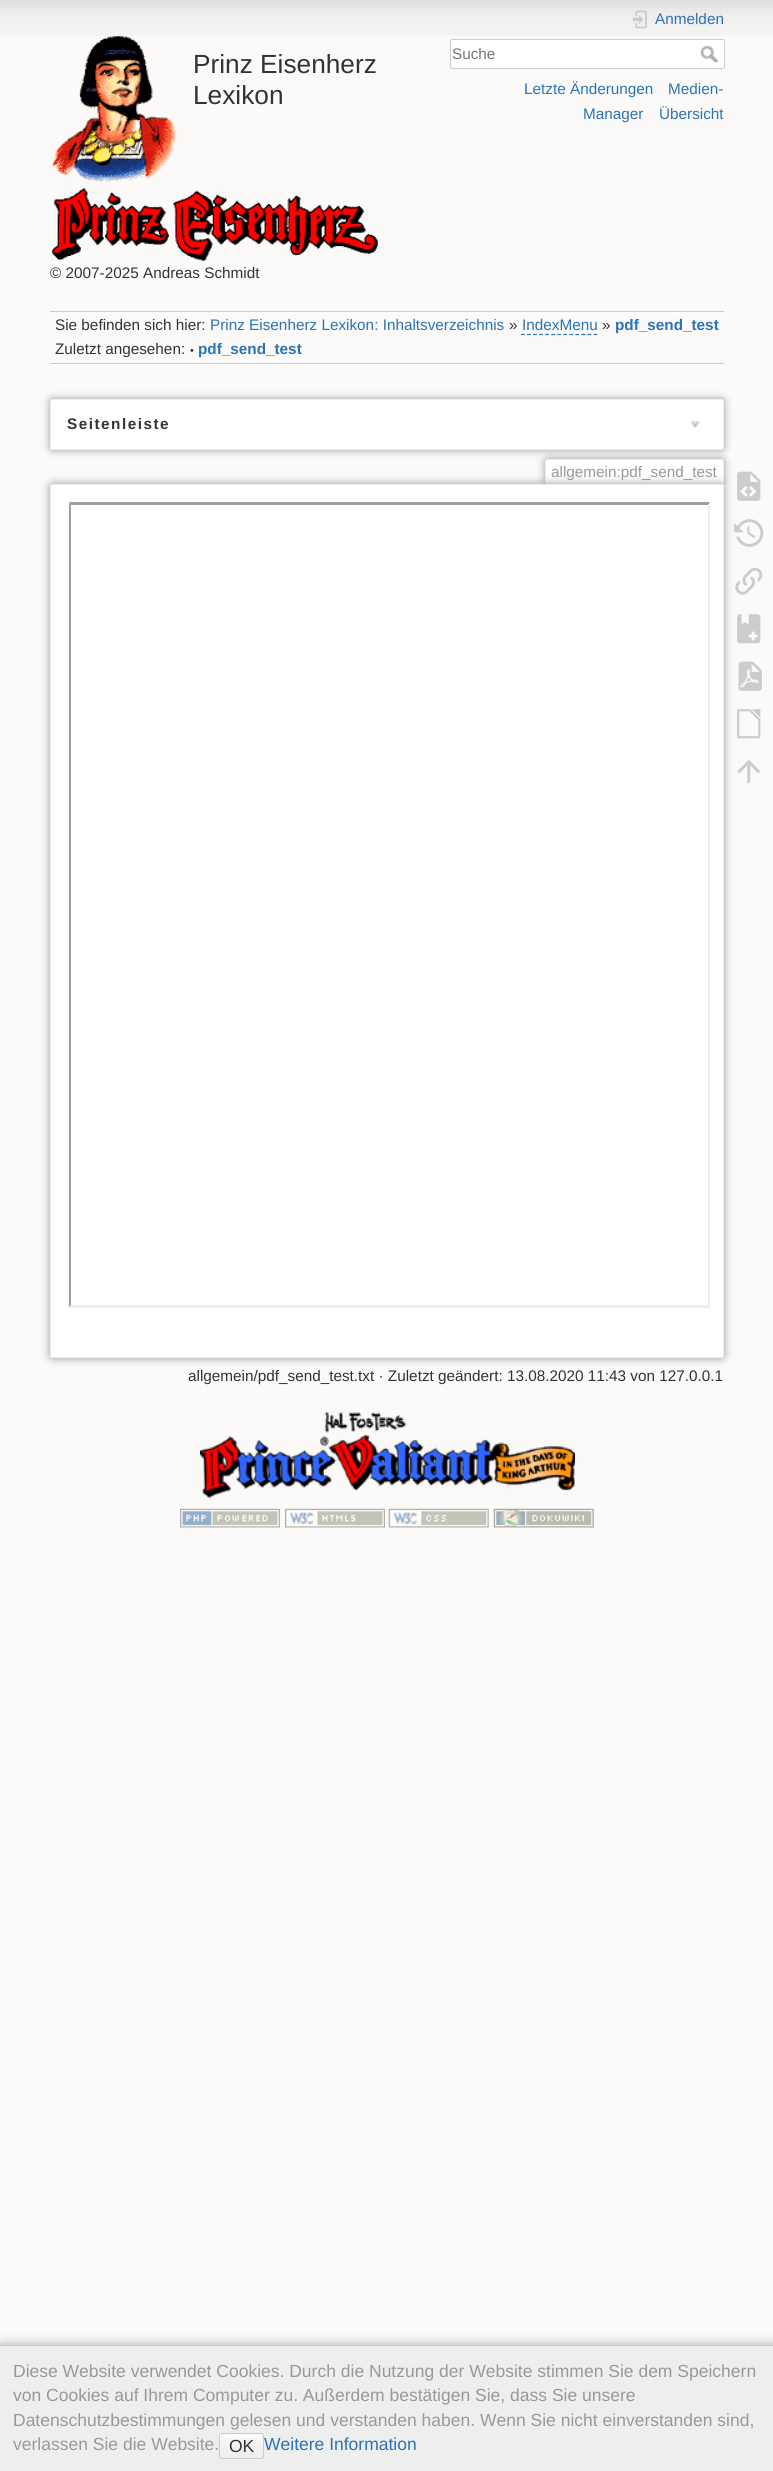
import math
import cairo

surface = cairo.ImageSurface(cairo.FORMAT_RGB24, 773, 2471)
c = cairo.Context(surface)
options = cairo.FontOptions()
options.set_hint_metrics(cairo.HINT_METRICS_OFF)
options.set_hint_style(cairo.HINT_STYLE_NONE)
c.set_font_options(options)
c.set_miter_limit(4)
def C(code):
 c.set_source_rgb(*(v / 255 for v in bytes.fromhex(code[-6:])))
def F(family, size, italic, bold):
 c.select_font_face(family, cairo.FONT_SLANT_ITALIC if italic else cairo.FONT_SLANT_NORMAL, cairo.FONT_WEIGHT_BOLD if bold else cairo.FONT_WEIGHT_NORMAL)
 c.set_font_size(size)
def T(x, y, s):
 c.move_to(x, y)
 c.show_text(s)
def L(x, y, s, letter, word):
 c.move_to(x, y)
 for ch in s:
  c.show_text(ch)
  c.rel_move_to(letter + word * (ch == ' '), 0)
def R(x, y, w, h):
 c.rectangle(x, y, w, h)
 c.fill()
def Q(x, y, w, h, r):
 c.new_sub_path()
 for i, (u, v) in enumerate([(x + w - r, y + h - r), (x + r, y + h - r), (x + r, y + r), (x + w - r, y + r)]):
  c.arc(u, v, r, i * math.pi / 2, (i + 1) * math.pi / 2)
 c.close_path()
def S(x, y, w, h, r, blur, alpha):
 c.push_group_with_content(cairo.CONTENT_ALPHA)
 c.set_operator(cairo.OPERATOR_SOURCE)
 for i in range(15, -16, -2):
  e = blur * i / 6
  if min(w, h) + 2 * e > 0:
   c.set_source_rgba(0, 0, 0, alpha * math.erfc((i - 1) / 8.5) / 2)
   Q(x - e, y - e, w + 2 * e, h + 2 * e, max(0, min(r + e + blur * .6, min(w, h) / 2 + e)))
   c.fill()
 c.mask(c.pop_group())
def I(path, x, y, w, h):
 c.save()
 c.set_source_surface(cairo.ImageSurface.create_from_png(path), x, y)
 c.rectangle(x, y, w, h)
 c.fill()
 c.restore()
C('fbfaf9')
c.paint()
I('1.png',0,0,773,36)
I('2.png',51,35,126,147)
F('Liberation Sans',26.25,0,0)
C('333333')
T(193,73,'Prinz Eisenherz')
T(193,104,'Lexikon')
I('3.png',52,188,326,74)
F('Liberation Sans',15.3,0,0)
T(50,278,'© 2007-2025 Andreas Schmidt')
I('4.png',632,10,15,19)
C('2b73b7')
T(655,24,'Anmelden')
C('ffffff')
Q(450.5,39.5,274,29,2)
c.fill_preserve()
C('cccccc')
c.set_line_width(1)
c.stroke()
C('757575')
T(452,59,'Suche')
I('5.png',700,45,18,18)
C('2b73b7')
T(524,94,'Letzte Änderungen')
T(668,94,'Medien-')
T(583,119,'Manager')
T(659,119,'Übersicht')
C('cccccc')
R(50,311,674,1)
C('ffffff')
R(50,364,674,1)
R(50,313,674,1)
C('333333')
T(55,330,'Sie befinden sich hier:')
C('2b73b7')
T(210,330,'Prinz Eisenherz Lexikon: Inhaltsverzeichnis')
C('333333')
T(509,330,'»')
C('2b73b7')
T(522,330,'IndexMenu')
c.new_path()
c.move_to(521,334.5)
c.line_to(597.5,334.5)
c.set_line_width(1.2)
c.set_dash([3.75,2.29])
c.stroke()
C('333333')
T(602,330,'»')
F('Liberation Sans',15.3,0,1)
C('2b73b7')
T(615,330,'pdf_send_test')
C('cccccc')
R(50,363,674,1)
F('Liberation Sans',15.3,0,0)
C('333333')
T(55,354,'Zuletzt angesehen:')
F('Liberation Sans',11,0,0)
T(190,354,'•')
F('Liberation Sans',15.3,0,1)
C('2b73b7')
T(198,354,'pdf_send_test')
c.save()
c.rectangle(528,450,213,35)
c.clip()
C('999999')
S(545,459,179,26,2.5,4,1)
c.restore()
C('ffffff')
c.new_path()
c.move_to(547,460)
c.line_to(722,460)
c.curve_to(722.5,460,723,460.5,723,461)
c.line_to(723,485)
c.line_to(546,485)
c.line_to(546,461)
c.curve_to(546,460.5,546.5,460,547,460)
c.close_path()
c.fill()
C('eeeeee')
R(546,459,177,1)
R(723,460,1,25)
R(545,460,1,25)
C('999999')
S(50,399,674,51,2.5,4,1)
C('ffffff')
Q(50.5,399.5,673,50,2)
c.fill_preserve()
C('eeeeee')
c.set_line_width(1)
c.set_dash([])
c.stroke()
C('333333')
L(67,429,'Seitenleiste',1.5,0)
I('6.png',690,421,10,7)
F('Liberation Sans',15.3,0,0)
C('999999')
T(551,477,'allgemein:pdf_send_test')
C('333333')
T(188,1381,'allgemein/pdf_send_test.txt · Zuletzt geändert: 13.08.2020 11:43 von 127.0.0.1')
C('999999')
S(50,484,674,874,2.5,4.5,1)
C('ffffff')
Q(50.5,484.5,673,873,2)
c.fill_preserve()
C('eeeeee')
c.stroke()
C('9f9f9f')
c.new_path()
c.move_to(69,502)
c.line_to(710,502)
c.line_to(708,505)
c.line_to(71,505)
c.close_path()
c.fill()
C('eeeeee')
c.new_path()
c.move_to(710,502)
c.line_to(710,1308)
c.line_to(708,1305)
c.line_to(708,505)
c.close_path()
c.fill()
c.new_path()
c.move_to(710,1308)
c.line_to(69,1308)
c.line_to(71,1305)
c.line_to(708,1305)
c.close_path()
c.fill()
C('9f9f9f')
c.new_path()
c.move_to(69,1308)
c.line_to(69,502)
c.line_to(71,505)
c.line_to(71,1305)
c.close_path()
c.fill()
C('999999')
S(0,2346,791,125,0,6,1)
C('eeeeee')
R(0,2346,773,125)
F('Liberation Sans',17.5,0,0)
C('999999')
T(13,2377,'Diese Website verwendet Cookies. Durch die Nutzung der Website stimmen Sie dem Speichern')
T(13,2401,'von Cookies auf Ihrem Computer zu. Außerdem bestätigen Sie, dass Sie unsere')
T(13,2426,'Datenschutzbestimmungen gelesen und verstanden haben. Wenn Sie nicht einverstanden sind,')
T(13,2450,'verlassen Sie die Website.')
c.save()
Q(219,2433,45,26,2.5)
c.clip()
gradient = cairo.LinearGradient(241,2434,241,2458)
gradient.add_color_stop_rgba(0,1,1,1,1)
gradient.add_color_stop_rgba(.3,0.957,0.957,0.957,1)
gradient.add_color_stop_rgba(.99,0.933,0.933,0.933,1)
gradient.add_color_stop_rgba(.99,0.8,0.8,0.8,1)
c.set_source(gradient)
R(219,2434,45,24)
c.restore()
Q(219.5,2433.5,44,25,2)
C('cccccc')
c.stroke()
C('333333')
T(229,2452,'OK')
C('2b73b7')
T(264,2450,'Weitere Information')
I('7.png',737,471,24,30)
I('8.png',734,519,30,28)
I('9.png',735,567,28,28)
I('10.png',737,614,24,30)
I('11.png',738,661,24,30)
I('12.png',737,709,24,30)
I('13.png',737,760,24,23)
I('14.png',200,1412,375,86)
I('15.png',180,1508,100,20)
I('16.png',285,1508,100,20)
I('17.png',388,1508,101,20)
I('18.png',493,1508,101,20)
surface.write_to_png('o.png')
